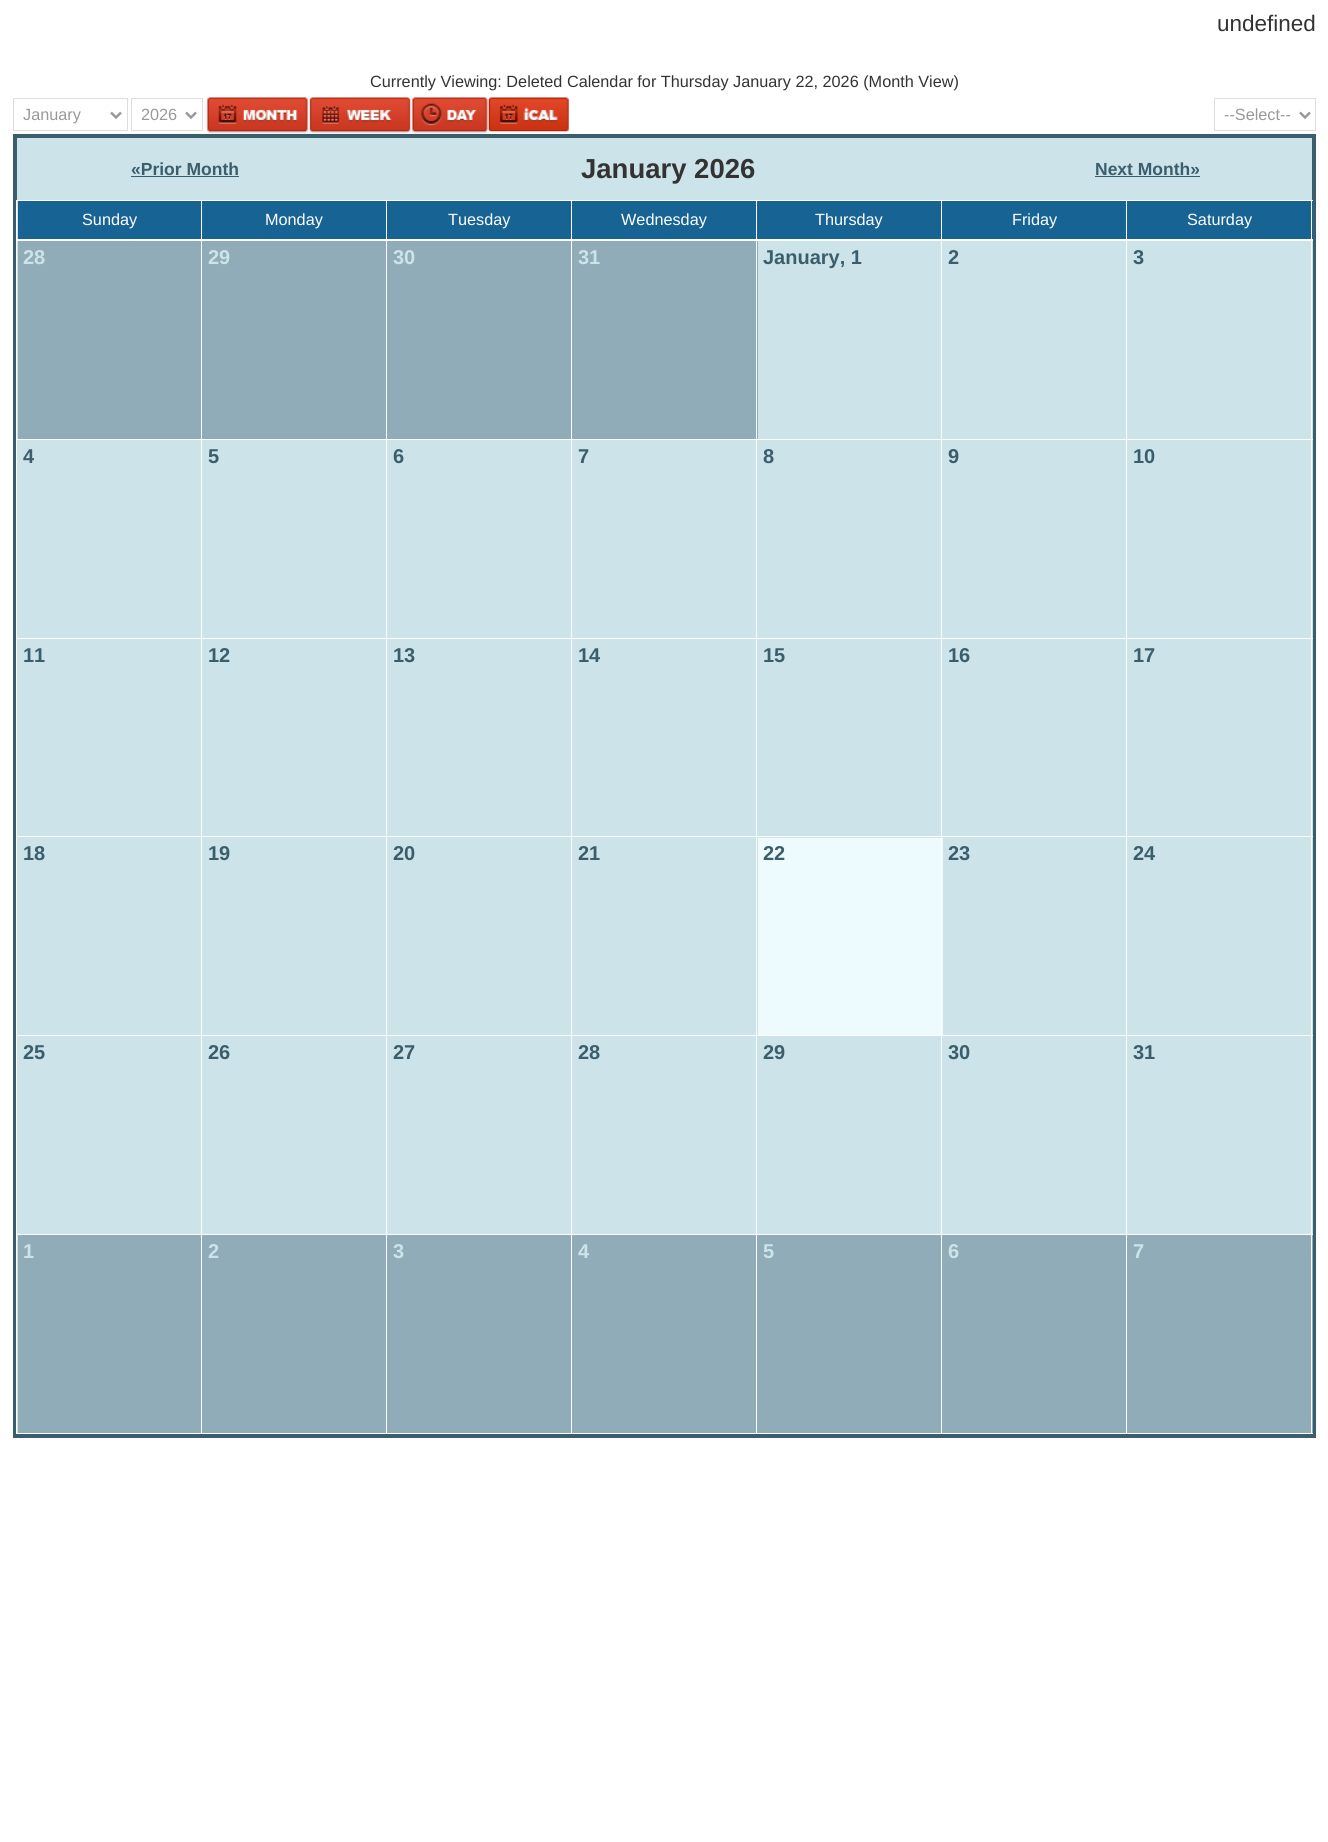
import math
import cairo

surface = cairo.ImageSurface(cairo.FORMAT_RGB24, 1328, 1842)
c = cairo.Context(surface)
options = cairo.FontOptions()
options.set_hint_metrics(cairo.HINT_METRICS_OFF)
options.set_hint_style(cairo.HINT_STYLE_NONE)
c.set_font_options(options)
c.set_miter_limit(4)
def C(code):
 c.set_source_rgb(*(v / 255 for v in bytes.fromhex(code[-6:])))
def F(family, size, italic, bold):
 c.select_font_face(family, cairo.FONT_SLANT_ITALIC if italic else cairo.FONT_SLANT_NORMAL, cairo.FONT_WEIGHT_BOLD if bold else cairo.FONT_WEIGHT_NORMAL)
 c.set_font_size(size)
def T(x, y, s):
 c.move_to(x, y)
 c.show_text(s)
def R(x, y, w, h):
 c.rectangle(x, y, w, h)
 c.fill()
def I(path, x, y, w, h):
 c.save()
 c.set_source_surface(cairo.ImageSurface.create_from_png(path), x, y)
 c.rectangle(x, y, w, h)
 c.fill()
 c.restore()
C('ffffff')
c.paint()
F('Liberation Sans',22.5,0,0)
C('333333')
T(1217,31,'undefined')
F('Liberation Sans',16.25,0,0)
T(370,87,'Currently Viewing: Deleted Calendar for Thursday January 22, 2026 (Month View)')
c.rectangle(13.5,98.5,114,32)
C('dddddd')
c.set_line_width(1)
c.stroke()
c.new_path()
c.move_to(111,112.5)
c.line_to(116,117.5)
c.line_to(121,112.5)
C('999999')
c.set_line_width(2.5)
c.stroke()
T(23,120,'January')
c.rectangle(131.5,98.5,71,32)
C('dddddd')
c.set_line_width(1)
c.stroke()
c.new_path()
c.move_to(186,112.5)
c.line_to(191,117.5)
c.line_to(196,112.5)
C('999999')
c.set_line_width(2.5)
c.stroke()
T(141,120,'2026')
I('1.png',206,97,103,37)
I('2.png',309,97,102,37)
I('3.png',411,97,78,37)
I('4.png',488,97,81,35)
c.rectangle(1214.5,98.5,101,32)
C('dddddd')
c.set_line_width(1)
c.stroke()
c.new_path()
c.move_to(1300,112.5)
c.line_to(1305,117.5)
c.line_to(1310,112.5)
C('999999')
c.set_line_width(2.5)
c.stroke()
T(1224,120,'--Select--')
C('cce3e9')
R(17,138,1295,1295)
c.rectangle(15,136,1299,1300)
C('3b5e6d')
c.set_line_width(4)
c.stroke()
F('Liberation Sans',17.5,0,1)
T(131,175,'«Prior Month')
R(131,176,108,1)
F('Liberation Sans',27.5,0,1)
C('333333')
T(581,178,'January 2026')
F('Liberation Sans',17.5,0,1)
C('3b5e6d')
T(1095,175,'Next Month»')
R(1095,176,105,1)
C('176394')
R(18,201,1295,38)
C('ffffff')
R(1126,200,187,1)
R(1311,200,1,40)
R(1126,239,187,1)
R(1126,200,1,40)
R(941,200,187,1)
R(941,239,187,1)
R(941,200,1,40)
R(756,200,187,1)
R(756,239,187,1)
R(756,200,1,40)
R(571,200,187,1)
R(571,239,187,1)
R(571,200,1,40)
R(386,200,187,1)
R(386,239,187,1)
R(386,200,1,40)
R(201,200,187,1)
R(201,239,187,1)
R(201,200,1,40)
R(16,200,187,1)
R(16,239,187,1)
R(16,200,1,40)
F('Liberation Sans',16.25,0,0)
T(82,225,'Sunday')
T(265,225,'Monday')
T(448,225,'Tuesday')
T(621,225,'Wednesday')
T(815,225,'Thursday')
T(1012,225,'Friday')
T(1187,225,'Saturday')
C('cce3e9')
R(1312,241,1,198)
C('ffffff')
R(16,240,1297,1)
R(16,439,1297,1)
R(16,638,1297,1)
C('cce3e9')
R(1312,639,1,396)
C('ffffff')
R(16,836,1297,1)
R(16,1035,1297,1)
R(16,1234,1297,1)
C('90acb8')
R(18,1235,1295,198)
C('ffffff')
R(1311,1234,1,200)
R(1311,1035,1,200)
R(1311,836,1,200)
R(1311,638,1,200)
R(1311,439,1,200)
R(1311,240,1,200)
R(16,1433,1297,1)
R(16,1234,1,200)
R(16,1035,1,200)
R(16,836,1,200)
R(16,638,1,200)
R(16,439,1,200)
R(16,240,1,200)
C('90acb8')
R(18,241,740,198)
F('Liberation Sans',20,0,1)
C('cce3e9')
T(23,264,'28')
T(208,264,'29')
T(393,264,'30')
T(578,264,'31')
C('3b5e6d')
T(763,264,'January, 1')
T(948,264,'2')
T(1133,264,'3')
C('cce3e9')
R(1312,440,1,198)
C('3b5e6d')
T(23,463,'4')
T(208,463,'5')
T(393,463,'6')
T(578,463,'7')
T(763,463,'8')
T(948,463,'9')
T(1133,463,'10')
T(23,662,'11')
T(208,662,'12')
T(393,662,'13')
T(578,662,'14')
T(763,662,'15')
T(948,662,'16')
T(1133,662,'17')
T(23,860,'18')
T(208,860,'19')
T(393,860,'20')
T(578,860,'21')
C('edfbff')
R(758,838,185,197)
C('3b5e6d')
T(763,860,'22')
T(948,860,'23')
T(1133,860,'24')
C('cce3e9')
R(1312,1036,1,198)
C('3b5e6d')
T(23,1059,'25')
T(208,1059,'26')
T(393,1059,'27')
T(578,1059,'28')
T(763,1059,'29')
T(948,1059,'30')
T(1133,1059,'31')
C('cce3e9')
T(23,1258,'1')
C('ffffff')
R(201,240,1,1194)
C('cce3e9')
T(208,1258,'2')
C('ffffff')
R(386,240,1,1194)
C('cce3e9')
T(393,1258,'3')
C('ffffff')
R(571,240,1,1194)
C('cce3e9')
T(578,1258,'4')
C('ffffff')
R(756,240,1,1194)
C('cce3e9')
T(763,1258,'5')
C('ffffff')
R(941,240,1,1194)
C('cce3e9')
T(948,1258,'6')
C('ffffff')
R(1126,240,1,1194)
C('cce3e9')
T(1133,1258,'7')
surface.write_to_png('o.png')
